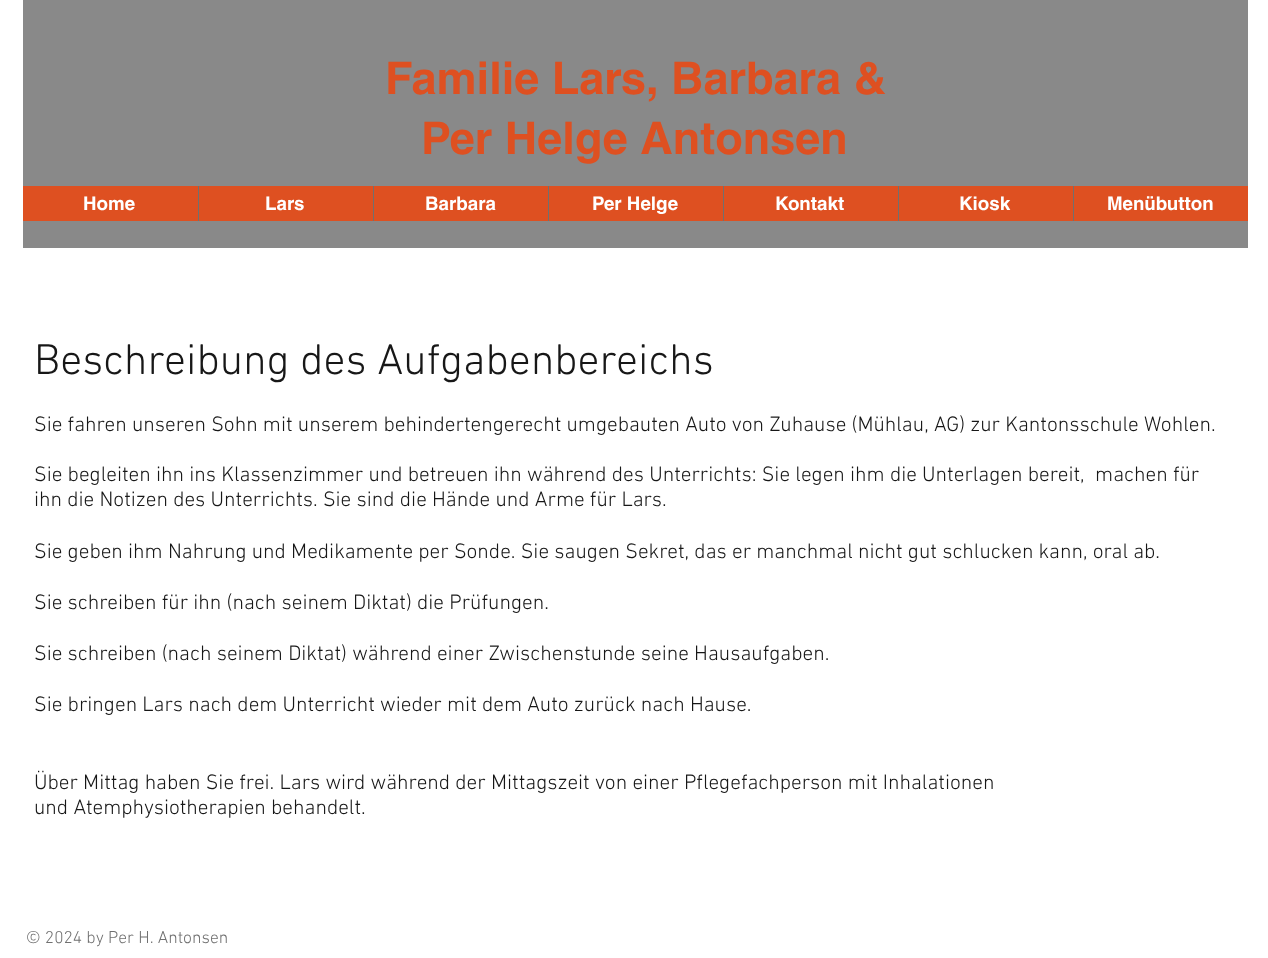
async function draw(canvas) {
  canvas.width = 1268
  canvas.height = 958
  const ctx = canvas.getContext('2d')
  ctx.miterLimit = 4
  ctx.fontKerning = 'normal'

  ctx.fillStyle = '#fff'
  ctx.fillRect(0, 0, 1268, 958)
  ctx.fillStyle = '#898989'
  ctx.fillRect(23, 0, 1225, 248)
  ctx.font = 'bold 45px helvetica'
  ctx.fillStyle = '#de5021'
  ctx.fillText('Familie Lars, Barbara &', 385, 94)
  ctx.fillText('Per Helge Antonsen', 421, 154)
  ctx.fillRect(23, 186, 1225, 35)
  ctx.font = 'bold 18.75px helvetica'
  ctx.fillStyle = '#fff'
  ctx.fillText('Home', 83, 210)
  ctx.fillStyle = '#707070'
  ctx.fillRect(198, 186, 1, 35)
  ctx.fillStyle = '#fff'
  ctx.fillText('Lars', 265, 210)
  ctx.fillStyle = '#707070'
  ctx.fillRect(373, 186, 1, 35)
  ctx.fillStyle = '#fff'
  ctx.fillText('Barbara', 425, 210)
  ctx.fillStyle = '#707070'
  ctx.fillRect(548, 186, 1, 35)
  ctx.fillStyle = '#fff'
  ctx.fillText('Per Helge', 592, 210)
  ctx.fillStyle = '#707070'
  ctx.fillRect(723, 186, 1, 35)
  ctx.fillStyle = '#fff'
  ctx.fillText('Kontakt', 775, 210)
  ctx.fillStyle = '#707070'
  ctx.fillRect(898, 186, 1, 35)
  ctx.fillStyle = '#fff'
  ctx.fillText('Kiosk', 959, 210)
  ctx.fillStyle = '#707070'
  ctx.fillRect(1073, 186, 1, 35)
  ctx.fillStyle = '#fff'
  ctx.fillText('Menübutton', 1107, 210)
  ctx.font = '300 43.75px "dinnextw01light"'
  ctx.fillStyle = '#171717'
  ctx.fillText('Beschreibung des Aufgabenbereichs', 34, 374)
  ctx.font = '300 21.25px "dinnextw01light"'
  ctx.fillText('Sie fahren unseren Sohn mit unserem behindertengerecht umgebauten Auto von Zuhause (Mühlau, AG) zur Kantonsschule Wohlen.', 34, 431)
  ctx.fillText('Sie begleiten ihn ins Klassenzimmer und betreuen ihn während des Unterrichts: Sie legen ihm die Unterlagen bereit,  machen für', 34, 481)
  ctx.fillText('ihn die Notizen des Unterrichts. Sie sind die Hände und Arme für Lars.', 34, 506)
  ctx.fillText('Sie geben ihm Nahrung und Medikamente per Sonde. Sie saugen Sekret, das er manchmal nicht gut schlucken kann, oral ab.', 34, 558)
  ctx.fillText('Sie schreiben für ihn (nach seinem Diktat) die Prüfungen.', 34, 609)
  ctx.fillText('Sie schreiben (nach seinem Diktat) während einer Zwischenstunde seine Hausaufgaben.', 34, 660)
  ctx.fillText('Sie bringen Lars nach dem Unterricht wieder mit dem Auto zurück nach Hause.', 34, 711)
  ctx.fillText('Über Mittag haben Sie frei. Lars wird während der Mittagszeit von einer Pflegefachperson mit Inhalationen', 34, 789)
  ctx.fillText('und Atemphysiotherapien behandelt.', 34, 814)
  ctx.font = '300 17.5px "dinnextw01light"'
  ctx.fillStyle = '#707070'
  ctx.fillText('© 2024 by Per H. Antonsen', 26, 943)
}

draw(document.querySelector('canvas'))
